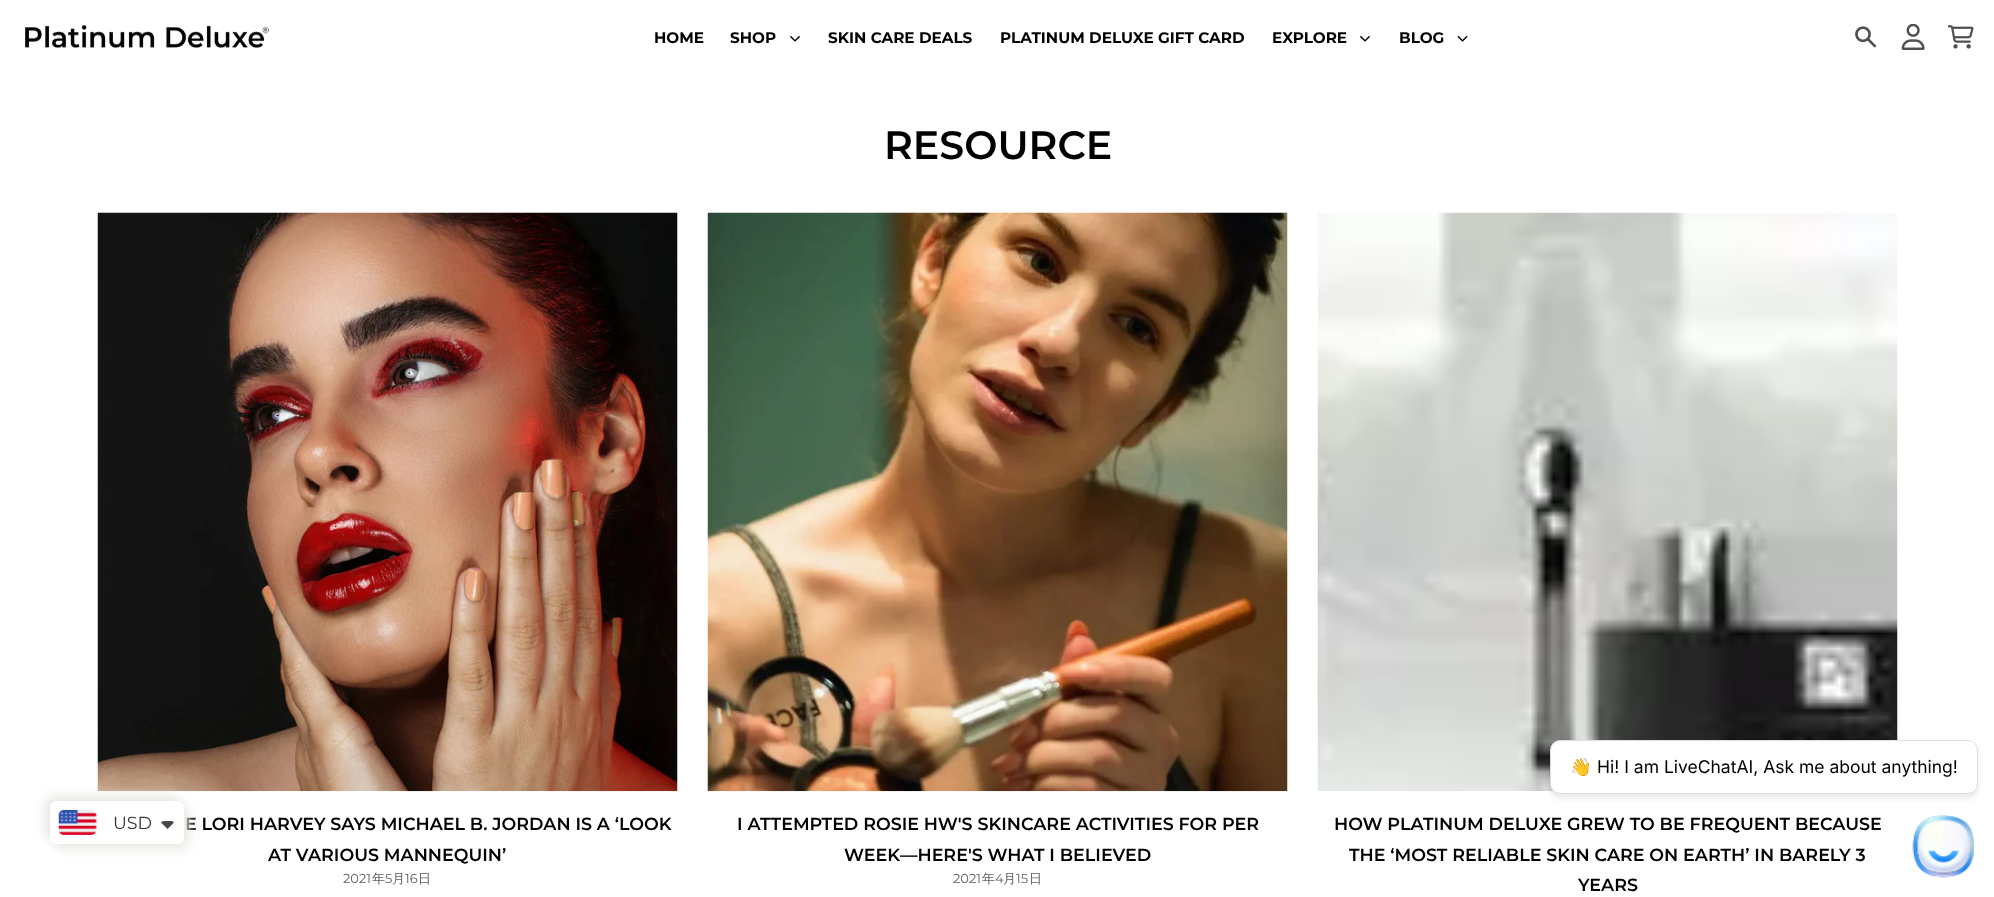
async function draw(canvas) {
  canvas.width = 1994
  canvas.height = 897
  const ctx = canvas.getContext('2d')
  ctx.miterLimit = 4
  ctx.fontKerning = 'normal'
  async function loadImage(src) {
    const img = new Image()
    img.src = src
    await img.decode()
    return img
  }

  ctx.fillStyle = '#fff'
  ctx.fillRect(0, 0, 1994, 897)
  ctx.drawImage(await loadImage('image0.png'), 25, 25, 244, 23)
  ctx.font = 'bold 15.25px Montserrat'
  ctx.fillStyle = '#000'
  ctx.fillText('HOME', 654, 43)
  ctx.fillText('SHOP', 730, 43)
  ctx.drawImage(await loadImage('image1.png'), 790, 36, 10, 6)
  ctx.fillText('SKIN CARE DEALS', 828, 43)
  ctx.fillText('PLATINUM DELUXE GIFT CARD', 1000, 43)
  ctx.fillText('EXPLORE', 1272, 43)
  ctx.drawImage(await loadImage('image1.png'), 1360, 36, 10, 6)
  ctx.fillText('BLOG', 1399, 43)
  ctx.drawImage(await loadImage('image2.png'), 1457, 36, 11, 6)
  ctx.drawImage(await loadImage('image3.png'), 1855, 26, 22, 22)
  ctx.drawImage(await loadImage('image4.png'), 1901, 24, 24, 26)
  ctx.drawImage(await loadImage('image5.png'), 1948, 25, 26, 24)
  ctx.font = '600 39.5px Montserrat'
  ctx.fillText('RESOURCE', 884, 159)
  ctx.drawImage(await loadImage('image6.png'), 97, 212, 581, 580)
  ctx.font = '600 17.5px Montserrat'
  ctx.fillText('E LORI HARVEY SAYS MICHAEL B. JORDAN IS A ‘LOOK', 185, 830)
  ctx.fillText('AT VARIOUS MANNEQUIN’', 268, 861)
  ctx.font = '13px Montserrat'
  ctx.fillStyle = '#616161'
  ctx.fillText('2021', 343, 883)
  ctx.font = '500 13px WenQuanYi Zen Hei'
  ctx.fillText('年', 372, 883)
  ctx.font = '13px Montserrat'
  ctx.fillText('5', 385, 883)
  ctx.font = '500 13px WenQuanYi Zen Hei'
  ctx.fillText('月', 392, 883)
  ctx.font = '13px Montserrat'
  ctx.fillText('16', 405, 883)
  ctx.font = '500 13px WenQuanYi Zen Hei'
  ctx.fillText('日', 418, 883)
  ctx.drawImage(await loadImage('image7.png'), 707, 212, 581, 580)
  ctx.font = '600 17.5px Montserrat'
  ctx.fillStyle = '#000'
  ctx.fillText('I ATTEMPTED ROSIE HW\'S SKINCARE ACTIVITIES FOR PER', 737, 830)
  ctx.fillText('WEEK—HERE\'S WHAT I BELIEVED', 844, 861)
  ctx.font = '13px Montserrat'
  ctx.fillStyle = '#616161'
  ctx.fillText('2021', 953, 883)
  ctx.font = '500 13px WenQuanYi Zen Hei'
  ctx.fillText('年', 982, 883)
  ctx.font = '13px Montserrat'
  ctx.fillText('4', 995, 883)
  ctx.font = '500 13px WenQuanYi Zen Hei'
  ctx.fillText('月', 1003, 883)
  ctx.font = '13px Montserrat'
  ctx.fillText('15', 1016, 883)
  ctx.font = '500 13px WenQuanYi Zen Hei'
  ctx.fillText('日', 1029, 883)
  ctx.drawImage(await loadImage('image8.png'), 1317, 212, 581, 579)
  ctx.font = '600 17.5px Montserrat'
  ctx.fillStyle = '#000'
  ctx.fillText('HOW PLATINUM DELUXE GREW TO BE FREQUENT BECAUSE', 1334, 830)
  ctx.fillText('THE ‘MOST RELIABLE SKIN CARE ON EARTH’ IN BARELY 3', 1349, 861)
  ctx.fillText('YEARS', 1578, 891)
  ctx.fillStyle = '#00000014'
  ctx.filter = 'blur(2.5px)'
  ctx.beginPath()
  ctx.roundRect(1550, 745, 428, 54, 10)
  ctx.fill()
  ctx.filter = 'none'
  ctx.fillStyle = '#fff'
  ctx.beginPath()
  ctx.roundRect(1550.5, 740.5, 427, 53, 9.5)
  ctx.fill()
  ctx.strokeStyle = '#ddd'
  ctx.stroke()
  ctx.font = '17.5px Noto Color Emoji'
  ctx.fillStyle = '#000'
  ctx.fillText('👋', 1570, 773)
  ctx.font = '17.5px Inter'
  ctx.fillText('Hi! I am LiveChatAI, Ask me about anything!', 1597, 773)
  ctx.drawImage(await loadImage('image9.png'), 1912, 815, 63, 63)
  ctx.fillStyle = '#e8e8e2'
  ctx.filter = 'blur(5.5px)'
  ctx.beginPath()
  ctx.roundRect(45, 796, 134, 43, 6)
  ctx.fill()
  ctx.filter = 'none'
  ctx.filter = 'blur(5.5px)'
  ctx.beginPath()
  ctx.roundRect(55, 806, 134, 43, 6)
  ctx.fill()
  ctx.filter = 'none'
  ctx.fillStyle = '#fff'
  ctx.beginPath()
  ctx.roundRect(50, 801, 134, 43, 6)
  ctx.fill()
  ctx.drawImage(await loadImage('image10.png'), 58, 810, 39, 25)
  ctx.font = '17.5px Montserrat'
  ctx.fillStyle = '#333'
  ctx.fillText('USD', 113, 829)
  ctx.fillStyle = '#474942'
  ctx.beginPath()
  ctx.moveTo(161, 822.5)
  ctx.bezierCurveTo(162.5, 820.5, 165.5, 821, 167.5, 821)
  ctx.bezierCurveTo(169.5, 821, 172.5, 820.5, 174, 822.5)
  ctx.lineTo(167.5, 829)
  ctx.closePath()
  ctx.fill()
}

draw(document.querySelector('canvas'))
